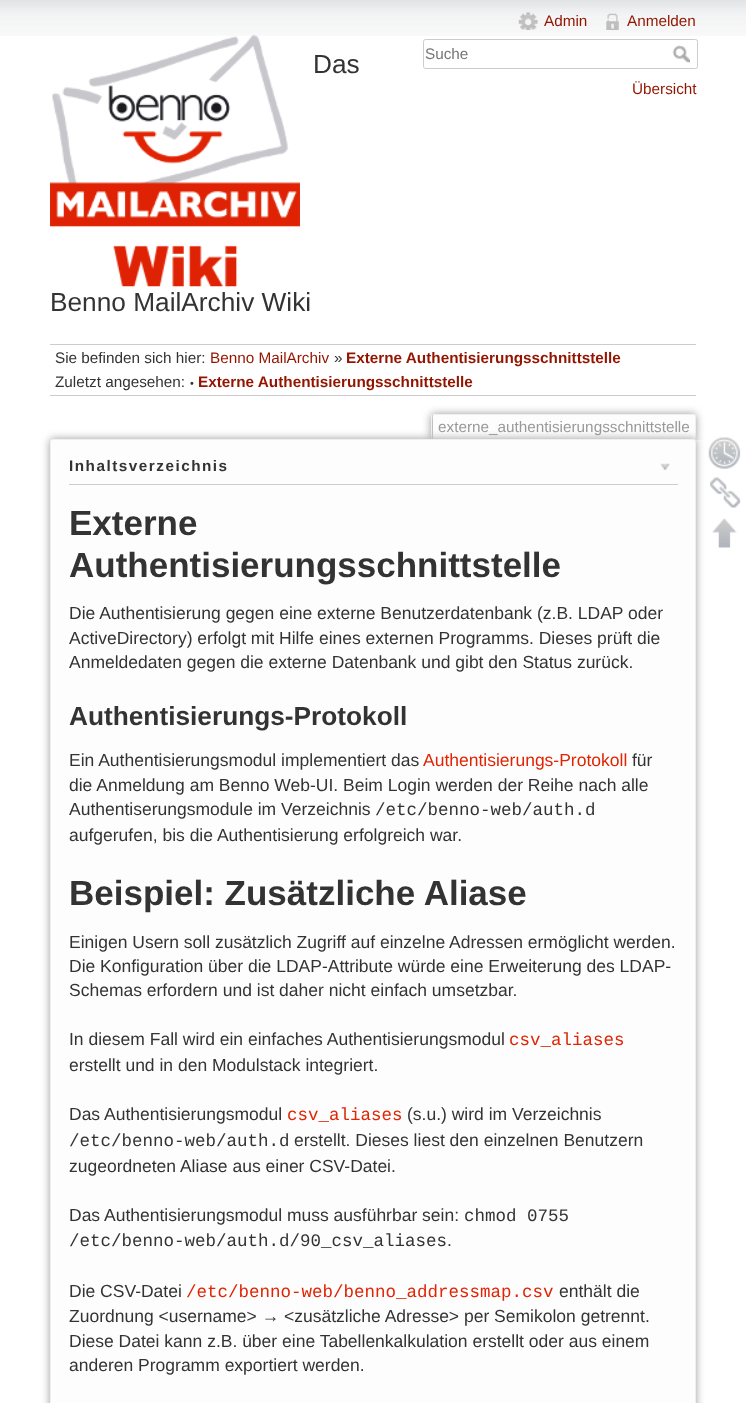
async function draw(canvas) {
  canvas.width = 746
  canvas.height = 1403
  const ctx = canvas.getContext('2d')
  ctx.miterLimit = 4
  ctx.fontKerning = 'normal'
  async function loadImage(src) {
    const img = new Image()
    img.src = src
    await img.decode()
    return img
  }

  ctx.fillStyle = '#fff'
  ctx.fillRect(0, 0, 746, 1403)
  ctx.drawImage(await loadImage('image0.png'), 0, 0, 746, 36)
  ctx.drawImage(await loadImage('image1.png'), 50, 35, 250, 252)
  ctx.font = '26.25px Liberation Sans'
  ctx.fillStyle = '#333'
  ctx.fillText('Das', 313, 73)
  ctx.fillText('Benno MailArchiv Wiki', 50, 311)
  ctx.drawImage(await loadImage('image2.png'), 518, 12, 20, 18)
  ctx.font = '15.3px Liberation Sans'
  ctx.fillStyle = '#931500'
  ctx.fillText('Admin', 544, 26)
  ctx.drawImage(await loadImage('image3.png'), 606, 13, 13, 17)
  ctx.fillText('Anmelden', 627, 26)
  ctx.beginPath()
  ctx.roundRect(423.5, 39.5, 274, 29, 2)
  ctx.strokeStyle = '#ccc'
  ctx.stroke()
  ctx.fillStyle = '#757575'
  ctx.fillText('Suche', 425, 59)
  ctx.drawImage(await loadImage('image4.png'), 672, 45, 18, 18)
  ctx.fillStyle = '#931500'
  ctx.fillText('Übersicht', 632, 94)
  ctx.fillStyle = '#ccc'
  ctx.fillRect(50, 344, 646, 1)
  ctx.fillStyle = '#333'
  ctx.fillText('Sie befinden sich hier:', 55, 363)
  ctx.fillStyle = '#931500'
  ctx.fillText('Benno MailArchiv', 210, 363)
  ctx.fillStyle = '#333'
  ctx.fillText('»', 334, 363)
  ctx.font = 'bold 15.3px Liberation Sans'
  ctx.fillStyle = '#931500'
  ctx.fillText('Externe Authentisierungsschnittstelle', 346, 363)
  ctx.fillStyle = '#ccc'
  ctx.fillRect(50, 395, 646, 1)
  ctx.font = '15.3px Liberation Sans'
  ctx.fillStyle = '#333'
  ctx.fillText('Zuletzt angesehen:', 55, 387)
  ctx.font = '11px Liberation Sans'
  ctx.fillText('•', 190, 387)
  ctx.font = 'bold 15.3px Liberation Sans'
  ctx.fillStyle = '#931500'
  ctx.fillText('Externe Authentisierungsschnittstelle', 198, 387)
  ctx.save()
  ctx.beginPath()
  ctx.rect(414, 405, 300, 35)
  ctx.clip()
  ctx.fillStyle = '#999'
  ctx.filter = 'blur(4px)'
  ctx.beginPath()
  ctx.roundRect(431, 414, 265, 26, 2.5)
  ctx.fill()
  ctx.filter = 'none'
  ctx.restore()
  ctx.fillStyle = '#fdfdfd'
  ctx.beginPath()
  ctx.roundRect(433, 415, 262, 25, [1, 1, 0, 0])
  ctx.fill()
  ctx.fillStyle = '#f0f0f0'
  ctx.fillRect(433, 414, 262, 1)
  ctx.fillRect(695, 415, 1, 25)
  ctx.fillRect(431, 415, 1, 25)
  ctx.font = '15.3px Liberation Sans'
  ctx.fillStyle = '#999'
  ctx.fillText('externe_authentisierungsschnittstelle', 438, 432)
  ctx.filter = 'blur(4.5px)'
  ctx.beginPath()
  ctx.roundRect(50, 439, 646, 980, 2.5)
  ctx.fill()
  ctx.filter = 'none'
  ctx.fillStyle = '#fdfdfd'
  ctx.beginPath()
  ctx.roundRect(50.5, 439.5, 645, 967, 2)
  ctx.fill()
  ctx.strokeStyle = '#f0f0f0'
  ctx.stroke()
  ctx.fillStyle = '#ccc'
  ctx.fillRect(69, 484, 609, 1)
  ctx.letterSpacing = '1.5px'
  ctx.font = 'bold 15.3px Liberation Sans'
  ctx.fillStyle = '#333'
  ctx.fillText('Inhaltsverzeichnis', 69, 471)
  ctx.drawImage(await loadImage('image5.png'), 660, 463, 10, 7)
  ctx.letterSpacing = '0px'
  ctx.font = 'bold 35px Liberation Sans'
  ctx.fillText('Externe', 69, 535)
  ctx.fillText('Authentisierungsschnittstelle', 69, 577)
  ctx.font = '17.5px Liberation Sans'
  ctx.fillText('Die Authentisierung gegen eine externe Benutzerdatenbank (z.B. LDAP oder', 69, 619)
  ctx.fillText('ActiveDirectory) erfolgt mit Hilfe eines externen Programms. Dieses prüft die', 69, 644)
  ctx.fillText('Anmeldedaten gegen die externe Datenbank und gibt den Status zurück.', 69, 668)
  ctx.font = 'bold 26.25px Liberation Sans'
  ctx.fillText('Authentisierungs-Protokoll', 69, 725)
  ctx.font = '17.5px Liberation Sans'
  ctx.fillText('Ein Authentisierungsmodul implementiert das', 69, 766)
  ctx.fillStyle = '#e02404'
  ctx.fillText('Authentisierungs-Protokoll', 423, 766)
  ctx.fillStyle = '#333'
  ctx.fillText('für', 632, 766)
  ctx.fillText('die Anmeldung am Benno Web-UI. Beim Login werden der Reihe nach alle', 69, 791)
  ctx.fillText('Authentiserungsmodule im Verzeichnis', 69, 815)
  ctx.font = '17.5px Liberation Mono'
  ctx.fillText('/etc/benno-web/auth.d', 375, 815)
  ctx.font = '17.5px Liberation Sans'
  ctx.fillText('aufgerufen, bis die Authentisierung erfolgreich war.', 69, 841)
  ctx.font = 'bold 35px Liberation Sans'
  ctx.fillText('Beispiel: Zusätzliche Aliase', 69, 905)
  ctx.font = '17.5px Liberation Sans'
  ctx.fillText('Einigen Usern soll zusätzlich Zugriff auf einzelne Adressen ermöglicht werden.', 69, 948)
  ctx.fillText('Die Konfiguration über die LDAP-Attribute würde eine Erweiterung des LDAP-', 69, 972)
  ctx.fillText('Schemas erfordern und ist daher nicht einfach umsetzbar.', 69, 996)
  ctx.fillText('In diesem Fall wird ein einfaches Authentisierungsmodul', 69, 1045)
  ctx.font = '17.5px Liberation Mono'
  ctx.fillStyle = '#e02404'
  ctx.fillText('csv_aliases', 509, 1045)
  ctx.font = '17.5px Liberation Sans'
  ctx.fillStyle = '#333'
  ctx.fillText('erstellt und in den Modulstack integriert.', 69, 1071)
  ctx.fillText('Das Authentisierungsmodul', 69, 1120)
  ctx.font = '17.5px Liberation Mono'
  ctx.fillStyle = '#e02404'
  ctx.fillText('csv_aliases', 287, 1120)
  ctx.font = '17.5px Liberation Sans'
  ctx.fillStyle = '#333'
  ctx.fillText('(s.u.) wird im Verzeichnis', 407, 1120)
  ctx.font = '17.5px Liberation Mono'
  ctx.fillText('/etc/benno-web/auth.d', 69, 1146)
  ctx.font = '17.5px Liberation Sans'
  ctx.fillText('erstellt. Dieses liest den einzelnen Benutzern', 294, 1146)
  ctx.fillText('zugeordneten Aliase aus einer CSV-Datei.', 69, 1172)
  ctx.fillText('Das Authentisierungsmodul muss ausführbar sein:', 69, 1221)
  ctx.font = '17.5px Liberation Mono'
  ctx.fillText('chmod 0755', 464, 1221)
  ctx.fillText('/etc/benno-web/auth.d/90_csv_aliases', 69, 1246)
  ctx.font = '17.5px Liberation Sans'
  ctx.fillText('.', 447, 1246)
  ctx.fillText('Die CSV-Datei', 69, 1297)
  ctx.font = '17.5px Liberation Mono'
  ctx.fillStyle = '#e02404'
  ctx.fillText('/etc/benno-web/benno_addressmap.csv', 186, 1297)
  ctx.font = '17.5px Liberation Sans'
  ctx.fillStyle = '#333'
  ctx.fillText('enthält die', 559, 1297)
  ctx.fillText('Zuordnung <username> → <zusätzliche Adresse> per Semikolon getrennt.', 69, 1322)
  ctx.fillText('Diese Datei kann z.B. über eine Tabellenkalkulation erstellt oder aus einem', 69, 1347)
  ctx.fillText('anderen Programm exportiert werden.', 69, 1371)
  ctx.drawImage(await loadImage('image6.png'), 708, 437, 33, 32)
  ctx.drawImage(await loadImage('image7.png'), 709, 477, 32, 31)
  ctx.drawImage(await loadImage('image8.png'), 712, 518, 25, 30)
}

draw(document.querySelector('canvas'))
